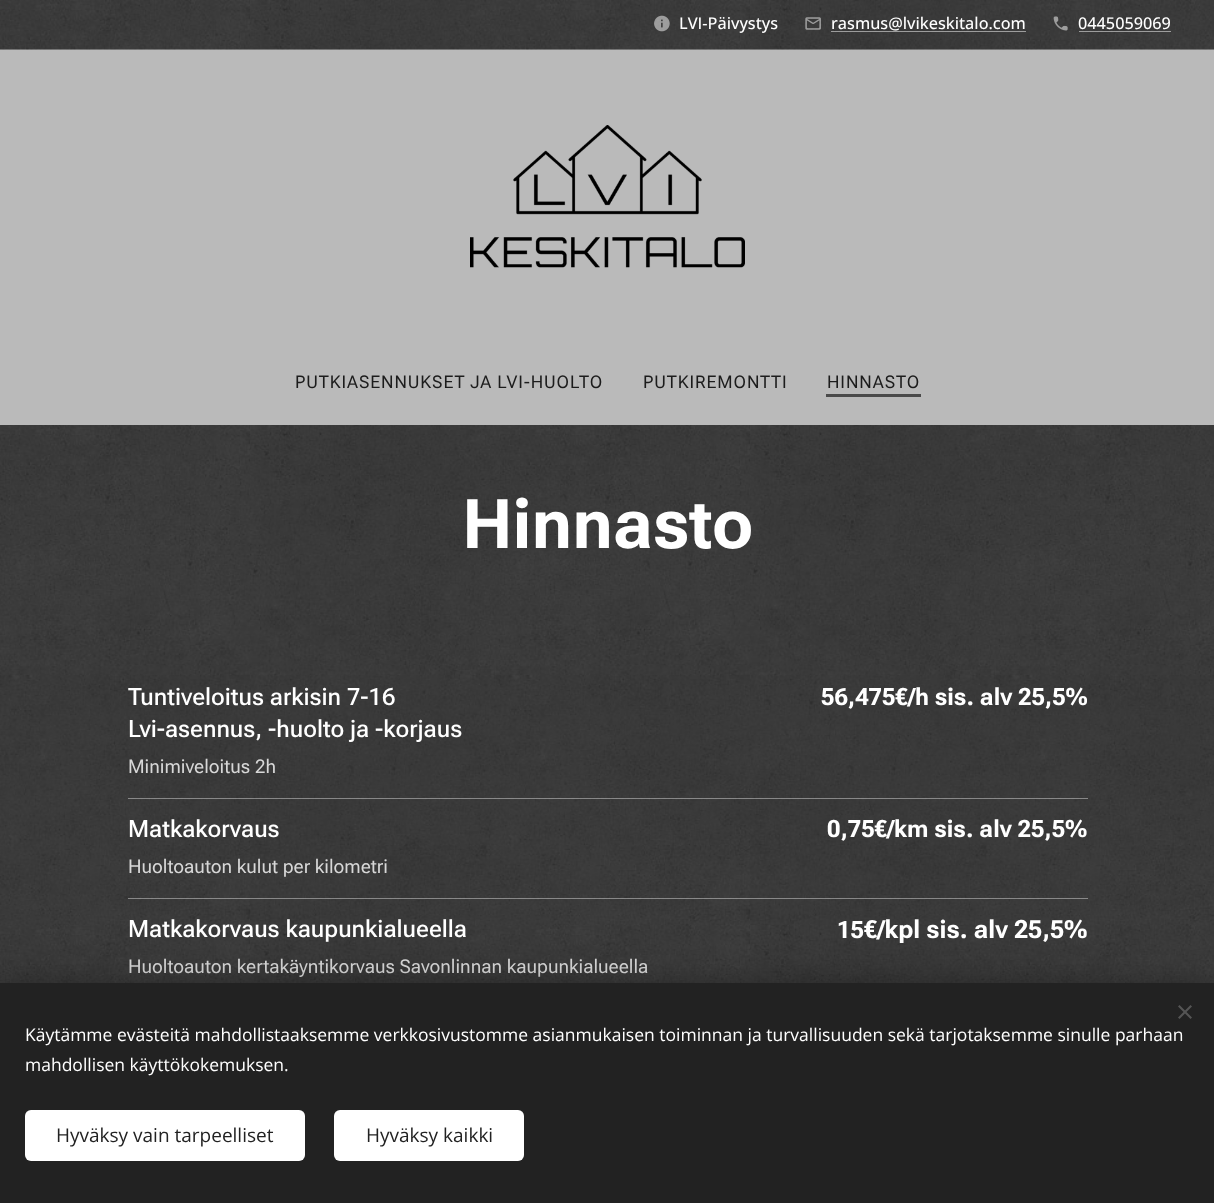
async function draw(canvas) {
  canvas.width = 1214
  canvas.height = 1203
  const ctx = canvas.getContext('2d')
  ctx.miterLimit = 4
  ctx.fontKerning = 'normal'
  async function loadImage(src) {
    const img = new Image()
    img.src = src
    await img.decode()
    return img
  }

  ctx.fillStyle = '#fff'
  ctx.fillRect(0, 0, 1214, 1203)
  ctx.drawImage(await loadImage('image0.png'), 0, 0, 1214, 50)
  ctx.drawImage(await loadImage('image1.png'), 654, 15, 16, 17)
  ctx.font = '500 16.25px Open Sans'
  ctx.fillText('LVI-Päivystys', 679, 29)
  ctx.drawImage(await loadImage('image2.png'), 805, 17, 16, 13)
  ctx.fillText('rasmus@lvikeskitalo.com', 831, 29)
  ctx.fillStyle = '#ffffff80'
  ctx.fillRect(831, 31, 195, 1)
  ctx.drawImage(await loadImage('image3.png'), 1053, 16, 15, 15)
  ctx.fillStyle = '#fff'
  ctx.fillText('0445059069', 1078, 29)
  ctx.fillStyle = '#ffffff80'
  ctx.fillRect(1079, 31, 92, 1)
  ctx.fillStyle = '#ffffff4d'
  ctx.fillRect(0, 49, 1214, 1)
  ctx.fillStyle = '#bababa'
  ctx.fillRect(0, 50, 1214, 375)
  ctx.drawImage(await loadImage('image4.png'), 470, 125, 275, 143)
  ctx.letterSpacing = '0.9px'
  ctx.font = '17.5px Roboto Flex'
  ctx.fillStyle = '#1c1c1c'
  ctx.fillText('PUTKIASENNUKSET JA LVI-HUOLTO', 295, 388)
  ctx.fillText('PUTKIREMONTTI', 643, 388)
  ctx.fillText('HINNASTO', 827, 388)
  ctx.fillStyle = '#4a4a4a'
  ctx.fillRect(826, 394, 95, 3)
  ctx.drawImage(await loadImage('image5.png'), 0, 425, 1214, 558)
  ctx.letterSpacing = '0px'
  ctx.font = 'bold 68.75px Roboto Flex'
  ctx.fillStyle = '#fff'
  ctx.fillText('Hinnasto', 462, 548)
  ctx.fillStyle = '#ffffff66'
  ctx.fillRect(128, 798, 960, 1)
  ctx.font = '500 23.75px Roboto Flex'
  ctx.fillStyle = '#fff'
  ctx.fillText('Tuntiveloitus arkisin 7-16', 128, 705)
  ctx.fillText('Lvi-asennus, -huolto ja -korjaus', 128, 737)
  ctx.font = '19px Roboto Flex'
  ctx.fillStyle = '#d7d7d7'
  ctx.fillText('Minimiveloitus 2h', 128, 773)
  ctx.font = 'bold 23.75px Roboto Flex'
  ctx.fillStyle = '#fff'
  ctx.fillText('56,475€/h sis. alv 25,5%', 821, 705)
  ctx.fillStyle = '#ffffff66'
  ctx.fillRect(128, 898, 960, 1)
  ctx.font = '500 23.75px Roboto Flex'
  ctx.fillStyle = '#fff'
  ctx.fillText('Matkakorvaus', 128, 837)
  ctx.font = '19px Roboto Flex'
  ctx.fillStyle = '#d7d7d7'
  ctx.fillText('Huoltoauton kulut per kilometri', 128, 873)
  ctx.font = 'bold 23.75px Roboto Flex'
  ctx.fillStyle = '#fff'
  ctx.fillText('0,75€/km sis. alv 25,5%', 827, 837)
  ctx.font = '500 23.75px Roboto Flex'
  ctx.fillText('Matkakorvaus kaupunkialueella', 128, 937)
  ctx.font = '19px Roboto Flex'
  ctx.fillStyle = '#d7d7d7'
  ctx.fillText('Huoltoauton kertakäyntikorvaus Savonlinnan kaupunkialueella', 128, 973)
  ctx.font = 'bold 23.75px Roboto Flex'
  ctx.fillStyle = '#fff'
  ctx.fillText('15', 837, 938)
  ctx.font = 'bold 25px Roboto Flex'
  ctx.fillText('€/kpl sis. alv 25,5%', 864, 938)
  ctx.fillStyle = '#00000054'
  ctx.filter = 'blur(15.5px)'
  ctx.beginPath()
  ctx.rect(0, 983, 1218, 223)
  ctx.fill()
  ctx.filter = 'none'
  ctx.fillStyle = '#222'
  ctx.fillRect(0, 983, 1214, 220)
  ctx.fillStyle = '#555'
  ctx.beginPath()
  ctx.moveTo(1178, 1017.5)
  ctx.lineTo(1190.5, 1005)
  ctx.lineTo(1192, 1006.5)
  ctx.lineTo(1179.5, 1019)
  ctx.closePath()
  ctx.fill()
  ctx.beginPath()
  ctx.moveTo(1179.5, 1005)
  ctx.lineTo(1192, 1017.5)
  ctx.lineTo(1190.5, 1019)
  ctx.lineTo(1178, 1006.5)
  ctx.closePath()
  ctx.fill()
  ctx.font = '17.5px Open Sans'
  ctx.fillStyle = '#fff'
  ctx.fillText('Käytämme evästeitä mahdollistaaksemme verkkosivustomme asianmukaisen toiminnan ja turvallisuuden sekä tarjotaksemme sinulle parhaan', 25, 1041)
  ctx.fillText('mahdollisen käyttökokemuksen.', 25, 1071)
  ctx.beginPath()
  ctx.roundRect(25, 1110, 280, 51, 6)
  ctx.fill()
  ctx.font = '19px Open Sans'
  ctx.fillStyle = '#222'
  ctx.fillText('Hyväksy vain tarpeelliset', 56, 1142)
  ctx.fillStyle = '#fff'
  ctx.beginPath()
  ctx.roundRect(334, 1110, 190, 51, 6)
  ctx.fill()
  ctx.fillStyle = '#222'
  ctx.fillText('Hyväksy kaikki', 366, 1142)
}

draw(document.querySelector('canvas'))
